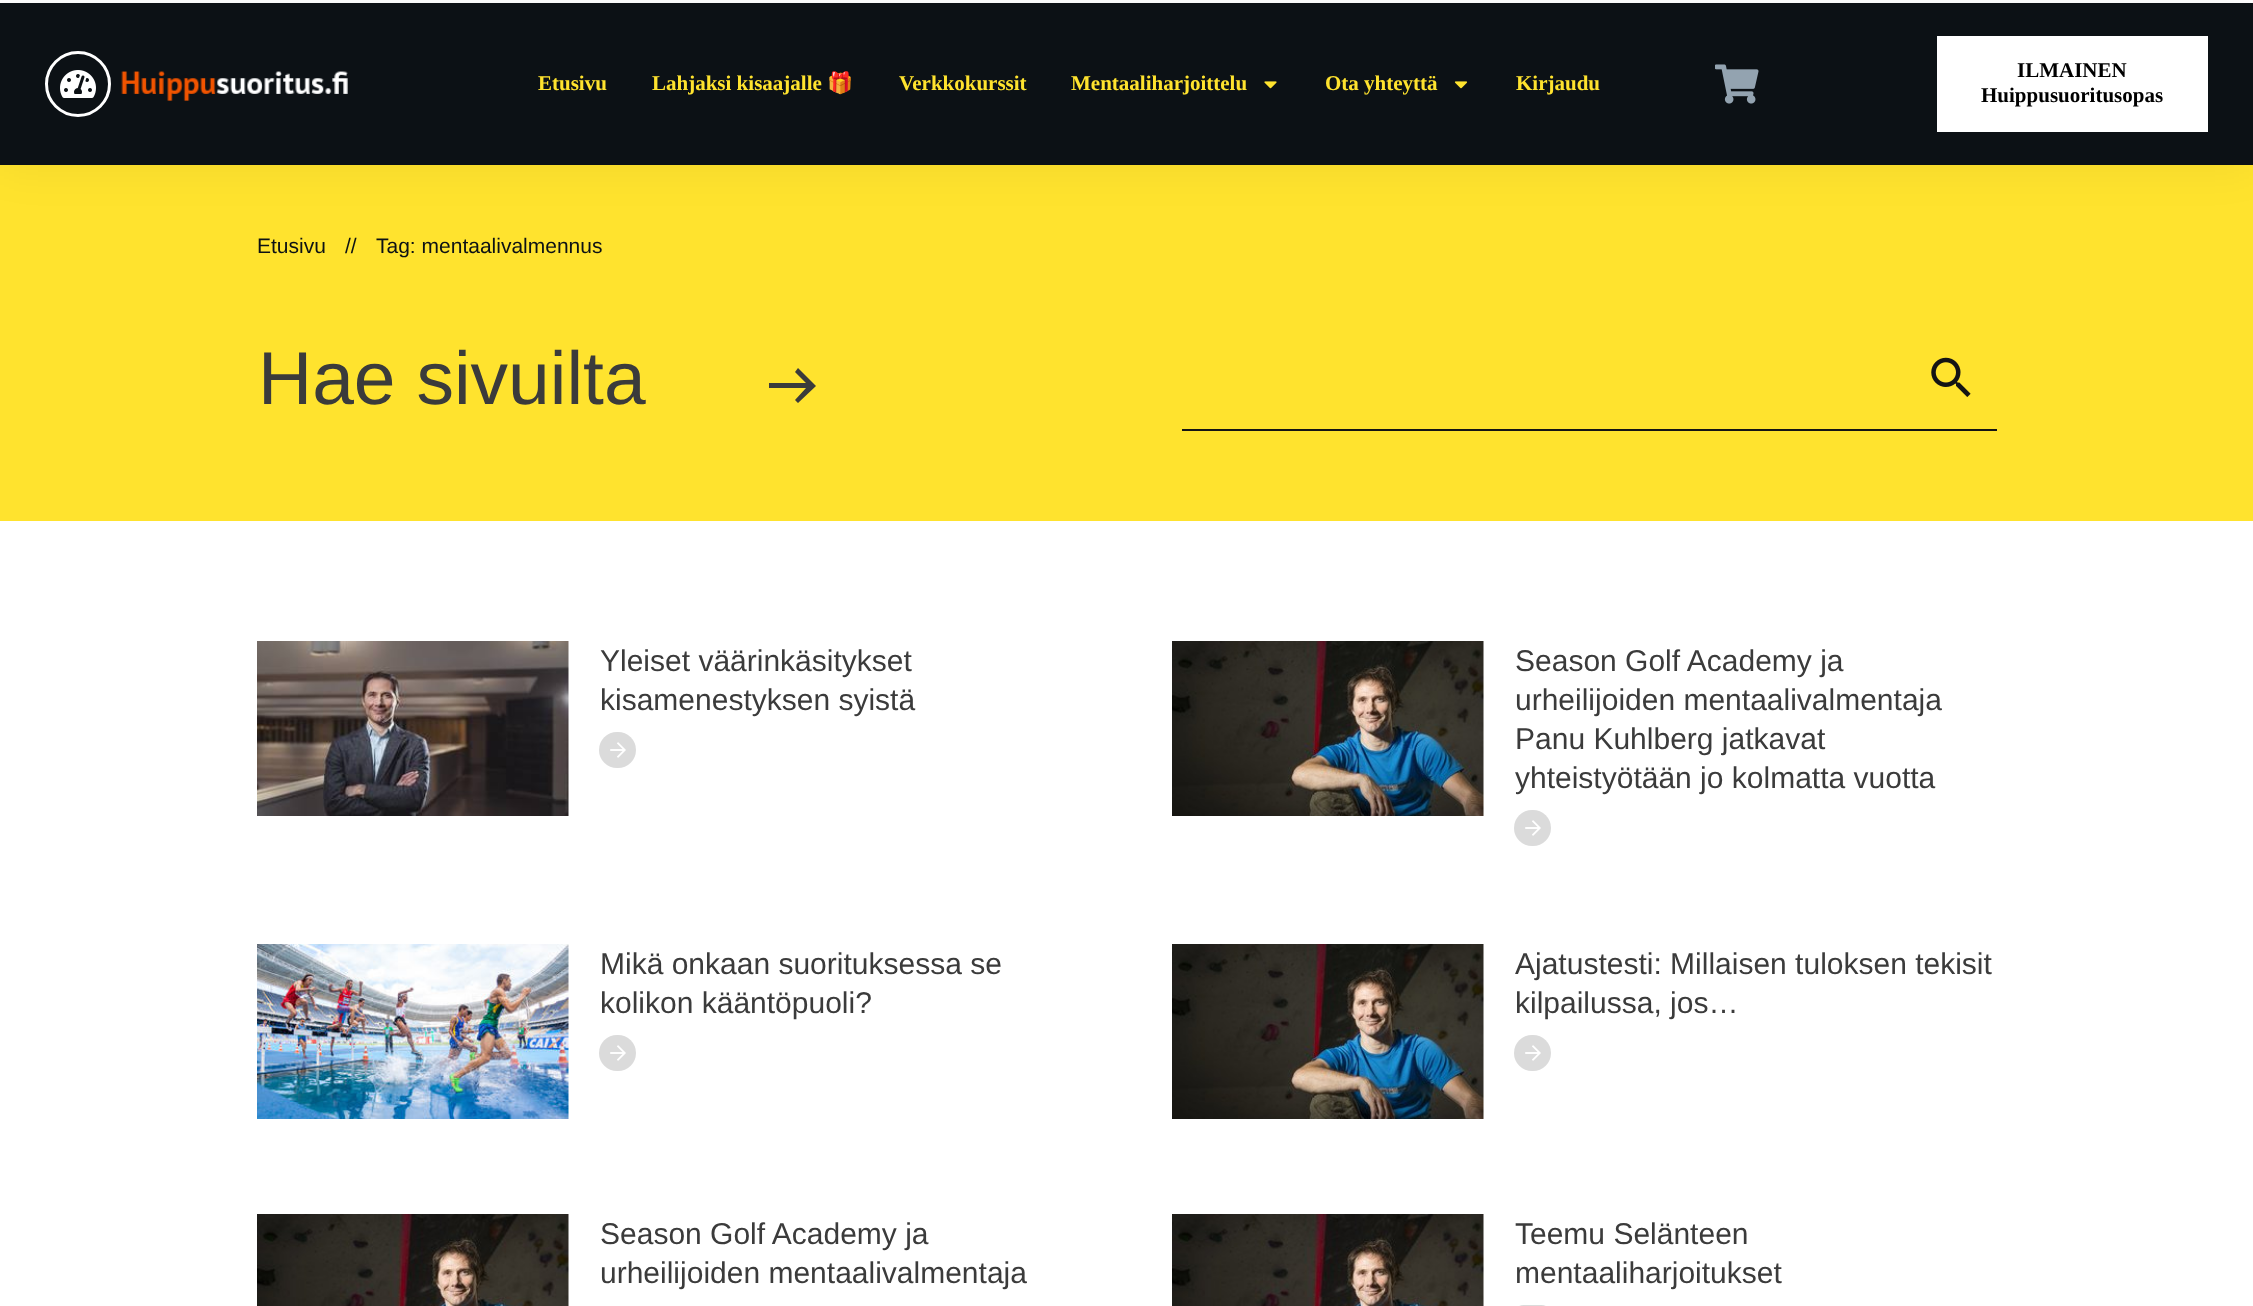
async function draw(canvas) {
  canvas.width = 2253
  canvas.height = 1306
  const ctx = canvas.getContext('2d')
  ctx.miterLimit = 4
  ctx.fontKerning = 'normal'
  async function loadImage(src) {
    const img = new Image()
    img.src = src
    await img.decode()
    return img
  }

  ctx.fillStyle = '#fff'
  ctx.fillRect(0, 0, 2253, 1306)
  ctx.fillStyle = '#ffe32e'
  ctx.fillRect(0, 165, 2253, 356)
  ctx.fillStyle = '#0000000d'
  ctx.filter = 'blur(22.5px)'
  ctx.beginPath()
  ctx.rect(0, 6, 2253, 162)
  ctx.fill()
  ctx.filter = 'none'
  ctx.fillStyle = '#0c1115'
  ctx.fillRect(0, 3, 2253, 162)
  ctx.beginPath()
  ctx.arc(78, 84, 31.5, 0, 2 * Math.PI)
  ctx.strokeStyle = '#fff'
  ctx.lineWidth = 3
  ctx.stroke()
  ctx.drawImage(await loadImage('image0.png'), 60, 70, 36, 28)
  ctx.drawImage(await loadImage('image1.png'), 121, 71, 227, 30)
  ctx.font = 'bold 21px Liberation Serif'
  ctx.fillStyle = '#ffe32e'
  ctx.fillText('Etusivu', 538, 90)
  ctx.fillText('Lahjaksi kisaajalle', 652, 90)
  ctx.font = 'bold 21px Noto Color Emoji'
  ctx.fillText('🎁', 827, 90)
  ctx.font = 'bold 21px Liberation Serif'
  ctx.fillText('Verkkokurssit', 899, 90)
  ctx.fillText('Mentaaliharjoittelu', 1071, 90)
  ctx.drawImage(await loadImage('image2.png'), 1264, 81, 13, 8)
  ctx.fillText('Ota yhteyttä', 1325, 90)
  ctx.drawImage(await loadImage('image3.png'), 1454, 81, 14, 8)
  ctx.fillText('Kirjaudu', 1516, 90)
  ctx.drawImage(await loadImage('image4.png'), 1715, 64, 44, 40)
  ctx.fillStyle = '#fff'
  ctx.fillRect(1937, 36, 271, 96)
  ctx.fillStyle = '#000'
  ctx.fillText('ILMAINEN', 2017, 77)
  ctx.fillText('Huippusuoritusopas', 1981, 102)
  ctx.font = '21px Liberation Sans'
  ctx.fillStyle = '#0c1115'
  ctx.fillText('Etusivu', 257, 253)
  ctx.fillText('//', 345, 253)
  ctx.fillText('Tag: mentaalivalmennus', 376, 253)
  ctx.font = '75px Liberation Sans'
  ctx.fillStyle = '#3b3b3b'
  ctx.fillText('Hae sivuilta', 258, 404)
  ctx.beginPath()
  ctx.moveTo(769, 388)
  ctx.lineTo(769, 383)
  ctx.lineTo(806, 383)
  ctx.lineTo(795, 372)
  ctx.lineTo(798, 368)
  ctx.lineTo(816, 386)
  ctx.lineTo(798, 403)
  ctx.lineTo(795, 400)
  ctx.lineTo(806, 388)
  ctx.closePath()
  ctx.fill()
  ctx.fillStyle = '#141414'
  ctx.fillRect(1182, 429, 815, 2)
  ctx.drawImage(await loadImage('image5.png'), 1931, 357, 40, 40)
  ctx.drawImage(await loadImage('image6.png'), 257, 641, 312, 175)
  ctx.font = '30px Liberation Sans'
  ctx.fillStyle = '#3b3b3b'
  ctx.fillText('Yleiset väärinkäsitykset', 600, 671)
  ctx.fillText('kisamenestyksen syistä', 600, 710)
  ctx.fillStyle = '#dbdbdb'
  ctx.beginPath()
  ctx.roundRect(599, 732, 37, 36, 18)
  ctx.fill()
  ctx.drawImage(await loadImage('image7.png'), 610, 742, 16, 16)
  ctx.drawImage(await loadImage('image8.png'), 1172, 641, 312, 175)
  ctx.fillStyle = '#3b3b3b'
  ctx.fillText('Season Golf Academy ja', 1515, 671)
  ctx.fillText('urheilijoiden mentaalivalmentaja', 1515, 710)
  ctx.fillText('Panu Kuhlberg jatkavat', 1515, 749)
  ctx.fillText('yhteistyötään jo kolmatta vuotta', 1515, 788)
  ctx.fillStyle = '#dbdbdb'
  ctx.beginPath()
  ctx.roundRect(1514, 810, 37, 36, 18)
  ctx.fill()
  ctx.drawImage(await loadImage('image7.png'), 1525, 820, 16, 16)
  ctx.drawImage(await loadImage('image9.png'), 257, 944, 312, 175)
  ctx.fillStyle = '#3b3b3b'
  ctx.fillText('Mikä onkaan suorituksessa se', 600, 974)
  ctx.fillText('kolikon kääntöpuoli?', 600, 1013)
  ctx.fillStyle = '#dbdbdb'
  ctx.beginPath()
  ctx.roundRect(599, 1035, 37, 36, 18)
  ctx.fill()
  ctx.drawImage(await loadImage('image7.png'), 610, 1045, 16, 16)
  ctx.drawImage(await loadImage('image8.png'), 1172, 944, 312, 175)
  ctx.fillStyle = '#3b3b3b'
  ctx.fillText('Ajatustesti: Millaisen tuloksen tekisit', 1515, 974)
  ctx.fillText('kilpailussa, jos…', 1515, 1013)
  ctx.fillStyle = '#dbdbdb'
  ctx.beginPath()
  ctx.roundRect(1514, 1035, 37, 36, 18)
  ctx.fill()
  ctx.drawImage(await loadImage('image7.png'), 1525, 1045, 16, 16)
  ctx.drawImage(await loadImage('image10.png'), 257, 1214, 312, 92)
  ctx.fillStyle = '#3b3b3b'
  ctx.fillText('Season Golf Academy ja', 600, 1244)
  ctx.fillText('urheilijoiden mentaalivalmentaja', 600, 1283)
  ctx.drawImage(await loadImage('image11.png'), 1172, 1214, 312, 92)
  ctx.fillText('Teemu Selänteen', 1515, 1244)
  ctx.fillText('mentaaliharjoitukset', 1515, 1283)
  ctx.fillStyle = '#dbdbdb'
  ctx.beginPath()
  ctx.roundRect(1514, 1305, 37, 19, 18)
  ctx.fill()
}

draw(document.querySelector('canvas'))
